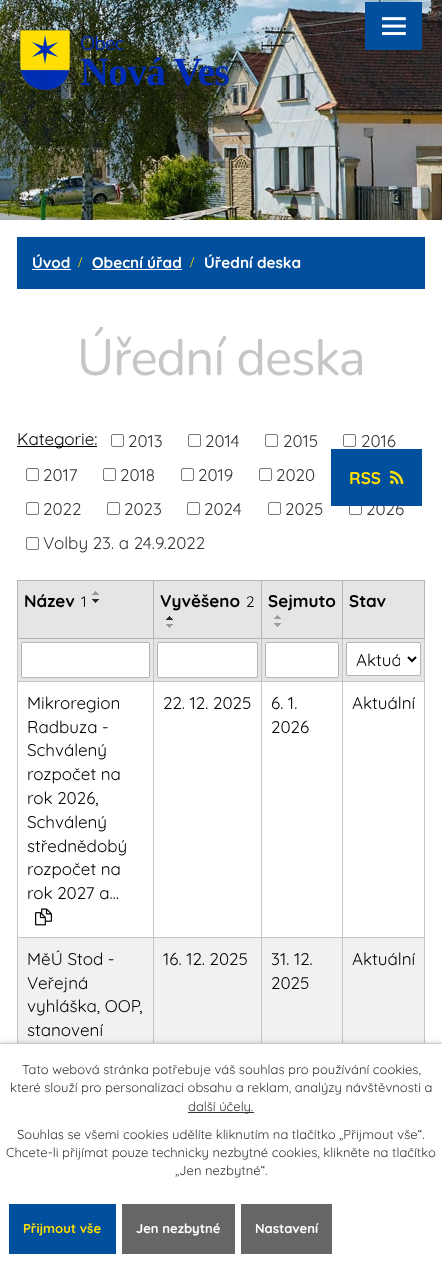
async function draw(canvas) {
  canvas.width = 442
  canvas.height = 1274
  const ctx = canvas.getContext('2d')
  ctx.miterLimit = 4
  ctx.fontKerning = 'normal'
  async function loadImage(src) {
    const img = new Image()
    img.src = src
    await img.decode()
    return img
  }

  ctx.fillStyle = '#fff'
  ctx.fillRect(0, 0, 442, 1274)
  ctx.drawImage(await loadImage('image0.png'), 0, 0, 442, 220)
  ctx.fillStyle = '#024f9d'
  ctx.fillRect(365, 2, 57, 48)
  ctx.drawImage(await loadImage('image1.png'), 382, 17, 24, 19)
  ctx.drawImage(await loadImage('image2.png'), 20, 30, 50, 60)
  ctx.letterSpacing = '-1px'
  ctx.font = '20px Nunito'
  ctx.fillStyle = '#002cb5'
  ctx.fillText('Obec', 80, 50)
  ctx.font = 'bold 40px Liberation Serif'
  ctx.fillText('Nová Ves', 80, 85)
  ctx.fillStyle = '#024f9d'
  ctx.fillRect(17, 237, 408, 52)
  ctx.letterSpacing = '0px'
  ctx.font = 'bold 15.25px Quicksand'
  ctx.fillStyle = '#fff'
  ctx.fillText('Úvod', 32, 268)
  ctx.fillRect(32, 269, 39, 1)
  ctx.font = '15.25px Liberation Serif'
  ctx.fillStyle = '#ffdf03'
  ctx.fillText('/', 78, 267)
  ctx.font = 'bold 15.25px Quicksand'
  ctx.fillStyle = '#fff'
  ctx.fillText('Obecní úřad', 92, 268)
  ctx.fillRect(92, 269, 90, 1)
  ctx.font = '15.25px Liberation Serif'
  ctx.fillStyle = '#ffdf03'
  ctx.fillText('/', 190, 267)
  ctx.font = 'bold 15.25px Quicksand'
  ctx.fillStyle = '#fff'
  ctx.fillText('Úřední deska', 204, 268)
  ctx.letterSpacing = '-1px'
  ctx.font = '51px Nunito'
  ctx.fillStyle = '#c6c6c6'
  ctx.fillText('Úřední deska', 77, 375)
  ctx.fillStyle = '#000'
  ctx.fillRect(17, 446, 80, 1)
  ctx.letterSpacing = '0px'
  ctx.font = '17px Quicksand'
  ctx.fillText('Kategorie:', 17, 445)
  ctx.beginPath()
  ctx.roundRect(111.5, 434.5, 12, 12, 1.5)
  ctx.strokeStyle = '#767676'
  ctx.stroke()
  ctx.fillStyle = '#333'
  ctx.fillText('2013', 128, 447)
  ctx.beginPath()
  ctx.roundRect(188.5, 434.5, 12, 12, 1.5)
  ctx.stroke()
  ctx.fillText('2014', 205, 447)
  ctx.beginPath()
  ctx.roundRect(265.5, 434.5, 12, 12, 1.5)
  ctx.stroke()
  ctx.fillText('2015', 283, 447)
  ctx.beginPath()
  ctx.roundRect(343.5, 434.5, 12, 12, 1.5)
  ctx.stroke()
  ctx.fillText('2016', 361, 447)
  ctx.beginPath()
  ctx.roundRect(26.5, 468.5, 12, 12, 1.5)
  ctx.stroke()
  ctx.fillText('2017', 43, 481)
  ctx.beginPath()
  ctx.roundRect(103.5, 468.5, 12, 12, 1.5)
  ctx.stroke()
  ctx.fillText('2018', 120, 481)
  ctx.beginPath()
  ctx.roundRect(181.5, 468.5, 12, 12, 1.5)
  ctx.stroke()
  ctx.fillText('2019', 198, 481)
  ctx.beginPath()
  ctx.roundRect(259.5, 468.5, 12, 12, 1.5)
  ctx.stroke()
  ctx.fillText('2020', 276, 481)
  ctx.beginPath()
  ctx.roundRect(26.5, 502.5, 12, 12, 1.5)
  ctx.stroke()
  ctx.fillText('2022', 43, 515)
  ctx.beginPath()
  ctx.roundRect(107.5, 502.5, 12, 12, 1.5)
  ctx.stroke()
  ctx.fillText('2023', 124, 515)
  ctx.beginPath()
  ctx.roundRect(187.5, 502.5, 12, 12, 1.5)
  ctx.stroke()
  ctx.fillText('2024', 204, 515)
  ctx.beginPath()
  ctx.roundRect(268.5, 502.5, 12, 12, 1.5)
  ctx.stroke()
  ctx.fillText('2025', 285, 515)
  ctx.beginPath()
  ctx.roundRect(349.5, 502.5, 12, 12, 1.5)
  ctx.stroke()
  ctx.fillText('2026', 366, 515)
  ctx.beginPath()
  ctx.roundRect(26.5, 537.5, 12, 12, 1.5)
  ctx.stroke()
  ctx.fillText('Volby 23. a 24.9.2022', 43, 549)
  ctx.fillStyle = '#024f9d'
  ctx.fillRect(331, 449, 91, 57)
  ctx.font = 'bold 17px Quicksand'
  ctx.fillStyle = '#ffdf03'
  ctx.fillText('RSS', 349, 484)
  ctx.drawImage(await loadImage('image3.png'), 390, 470, 14, 14)
  ctx.fillStyle = '#e5e5e5'
  ctx.fillRect(18, 581, 135, 57)
  ctx.fillStyle = '#b5b5b5'
  ctx.fillRect(342, 580, 83, 1)
  ctx.fillStyle = '#c5c5c5'
  ctx.fillRect(342, 681, 83, 1)
  ctx.fillRect(342, 937, 83, 1)
  ctx.fillRect(424, 937, 1, 106)
  ctx.fillRect(424, 638, 1, 300)
  ctx.fillStyle = '#b5b5b5'
  ctx.fillRect(424, 580, 1, 59)
  ctx.fillStyle = '#f1f1f1'
  ctx.fillRect(18, 938, 406, 105)
  ctx.fillStyle = '#c5c5c5'
  ctx.fillRect(342, 937, 1, 106)
  ctx.fillRect(261, 937, 82, 1)
  ctx.fillRect(342, 681, 1, 257)
  ctx.fillRect(261, 681, 82, 1)
  ctx.fillRect(342, 638, 1, 44)
  ctx.fillStyle = '#b5b5b5'
  ctx.fillRect(342, 638, 83, 1)
  ctx.fillRect(342, 580, 1, 59)
  ctx.fillRect(261, 580, 82, 1)
  ctx.fillStyle = '#c5c5c5'
  ctx.fillRect(261, 937, 1, 106)
  ctx.fillRect(153, 937, 109, 1)
  ctx.fillRect(261, 681, 1, 257)
  ctx.fillRect(153, 681, 109, 1)
  ctx.fillRect(261, 638, 1, 44)
  ctx.fillStyle = '#b5b5b5'
  ctx.fillRect(261, 638, 82, 1)
  ctx.fillRect(261, 580, 1, 59)
  ctx.fillRect(153, 580, 109, 1)
  ctx.fillStyle = '#c5c5c5'
  ctx.fillRect(153, 937, 1, 106)
  ctx.fillRect(17, 937, 137, 1)
  ctx.fillRect(153, 681, 1, 257)
  ctx.fillRect(17, 681, 137, 1)
  ctx.fillRect(153, 638, 1, 44)
  ctx.fillStyle = '#b5b5b5'
  ctx.fillRect(153, 638, 109, 1)
  ctx.fillRect(153, 580, 1, 59)
  ctx.fillRect(17, 580, 137, 1)
  ctx.fillStyle = '#c5c5c5'
  ctx.fillRect(17, 937, 1, 106)
  ctx.fillRect(17, 638, 1, 300)
  ctx.fillStyle = '#b5b5b5'
  ctx.fillRect(17, 638, 137, 1)
  ctx.fillRect(17, 580, 1, 59)
  ctx.fillStyle = '#000'
  ctx.fillText('Název', 24, 607)
  ctx.font = '15.25px Quicksand'
  ctx.fillText('1', 81, 607)
  ctx.drawImage(await loadImage('image4.png'), 92, 591, 7, 4)
  ctx.drawImage(await loadImage('image5.png'), 92, 599, 7, 4)
  ctx.fillStyle = '#e5e5e5'
  ctx.fillRect(154, 581, 107, 57)
  ctx.font = 'bold 17px Quicksand'
  ctx.fillStyle = '#000'
  ctx.fillText('Vyvěšeno', 160, 607)
  ctx.font = '15.25px Quicksand'
  ctx.fillText('2', 246, 607)
  ctx.drawImage(await loadImage('image6.png'), 166, 616, 7, 4)
  ctx.drawImage(await loadImage('image7.png'), 166, 624, 7, 4)
  ctx.fillStyle = '#e5e5e5'
  ctx.fillRect(262, 581, 80, 57)
  ctx.font = 'bold 17px Quicksand'
  ctx.fillStyle = '#000'
  ctx.fillText('Sejmuto', 268, 607)
  ctx.drawImage(await loadImage('image4.png'), 274, 615, 7, 4)
  ctx.drawImage(await loadImage('image7.png'), 274, 623, 7, 4)
  ctx.fillStyle = '#e5e5e5'
  ctx.fillRect(343, 581, 81, 57)
  ctx.fillStyle = '#000'
  ctx.fillText('Stav', 349, 607)
  ctx.fillStyle = '#e5e5e5'
  ctx.fillRect(18, 639, 135, 42)
  ctx.fillStyle = '#fff'
  ctx.beginPath()
  ctx.roundRect(21.5, 642.5, 128, 35, 1.5)
  ctx.fill()
  ctx.strokeStyle = '#b5b5b5'
  ctx.stroke()
  ctx.fillStyle = '#e5e5e5'
  ctx.fillRect(154, 639, 107, 42)
  ctx.fillStyle = '#fff'
  ctx.beginPath()
  ctx.roundRect(157.5, 642.5, 100, 35, 1.5)
  ctx.fill()
  ctx.stroke()
  ctx.fillStyle = '#e5e5e5'
  ctx.fillRect(262, 639, 80, 42)
  ctx.fillStyle = '#fff'
  ctx.beginPath()
  ctx.roundRect(265.5, 642.5, 73, 35, 1.5)
  ctx.fill()
  ctx.stroke()
  ctx.fillStyle = '#e5e5e5'
  ctx.fillRect(343, 639, 81, 42)
  ctx.fillStyle = '#fff'
  ctx.beginPath()
  ctx.roundRect(346.5, 642.5, 74, 33, 1.5)
  ctx.fill()
  ctx.stroke()
  ctx.beginPath()
  ctx.moveTo(408, 657)
  ctx.lineTo(412, 661)
  ctx.lineTo(416, 657)
  ctx.strokeStyle = '#000'
  ctx.lineWidth = 2
  ctx.stroke()
  ctx.save()
  ctx.beginPath()
  ctx.rect(356, 648, 44, 23)
  ctx.clip()
  ctx.font = '17px Quicksand'
  ctx.fillStyle = '#000'
  ctx.fillText('Aktuá', 356, 666)
  ctx.restore()
  ctx.font = '17px Quicksand'
  ctx.fillStyle = '#000'
  ctx.fillText('Mikroregion', 27, 709)
  ctx.fillText('Radbuza -', 27, 733)
  ctx.fillText('Schválený', 27, 756)
  ctx.fillText('rozpočet na', 27, 780)
  ctx.fillText('rok 2026,', 27, 804)
  ctx.fillText('Schválený', 27, 828)
  ctx.fillText('střednědobý', 27, 852)
  ctx.fillText('rozpočet na', 27, 875)
  ctx.fillText('rok 2027 a…', 27, 899)
  ctx.drawImage(await loadImage('image8.png'), 35, 908, 17, 18)
  ctx.fillText('22. 12. 2025', 163, 709)
  ctx.fillText('6. 1.', 271, 709)
  ctx.fillText('2026', 271, 733)
  ctx.fillText('Aktuální', 352, 709)
  ctx.fillText('MěÚ Stod -', 27, 965)
  ctx.fillText('Veřejná', 27, 989)
  ctx.fillText('vyhláška, OOP,', 27, 1012)
  ctx.fillText('stanovení', 27, 1036)
  ctx.fillText('16. 12. 2025', 163, 965)
  ctx.fillText('31. 12.', 271, 965)
  ctx.fillText('2025', 271, 989)
  ctx.fillText('Aktuální', 352, 965)
  ctx.fillStyle = '#00000033'
  ctx.filter = 'blur(2.5px)'
  ctx.beginPath()
  ctx.rect(0, 1043, 442, 231)
  ctx.fill()
  ctx.filter = 'none'
  ctx.fillStyle = '#fff'
  ctx.fillRect(0, 1044, 442, 230)
  ctx.fillStyle = '#ccc'
  ctx.fillRect(0, 1043, 442, 1)
  ctx.font = '13px Quicksand'
  ctx.fillStyle = '#333'
  ctx.fillText('Tato webová stránka potřebuje váš souhlas pro používání cookies,', 22, 1074)
  ctx.fillText('které slouží pro personalizaci obsahu a reklam, analýzy návštěvnosti a', 10, 1092)
  ctx.fillRect(188, 1112, 66, 1)
  ctx.fillText('další účely.', 188, 1111)
  ctx.fillText('Souhlas se všemi cookies udělíte kliknutím na tlačítko „Přijmout vše“.', 17, 1139)
  ctx.fillText('Chcete-li přijímat pouze technicky nezbytné cookies, klikněte na tlačítko', 6, 1157)
  ctx.fillText('„Jen nezbytné“.', 175, 1175)
  ctx.fillStyle = '#024f9d'
  ctx.fillRect(9, 1204, 107, 50)
  ctx.font = 'bold 13px Quicksand'
  ctx.fillStyle = '#ffdf03'
  ctx.fillText('Přijmout vše', 23, 1233)
  ctx.fillStyle = '#666'
  ctx.fillRect(122, 1204, 113, 50)
  ctx.fillStyle = '#fff'
  ctx.fillText('Jen nezbytné', 136, 1233)
  ctx.fillStyle = '#666'
  ctx.fillRect(241, 1204, 91, 50)
  ctx.fillStyle = '#fff'
  ctx.fillText('Nastavení', 255, 1233)
}

draw(document.querySelector('canvas'))
